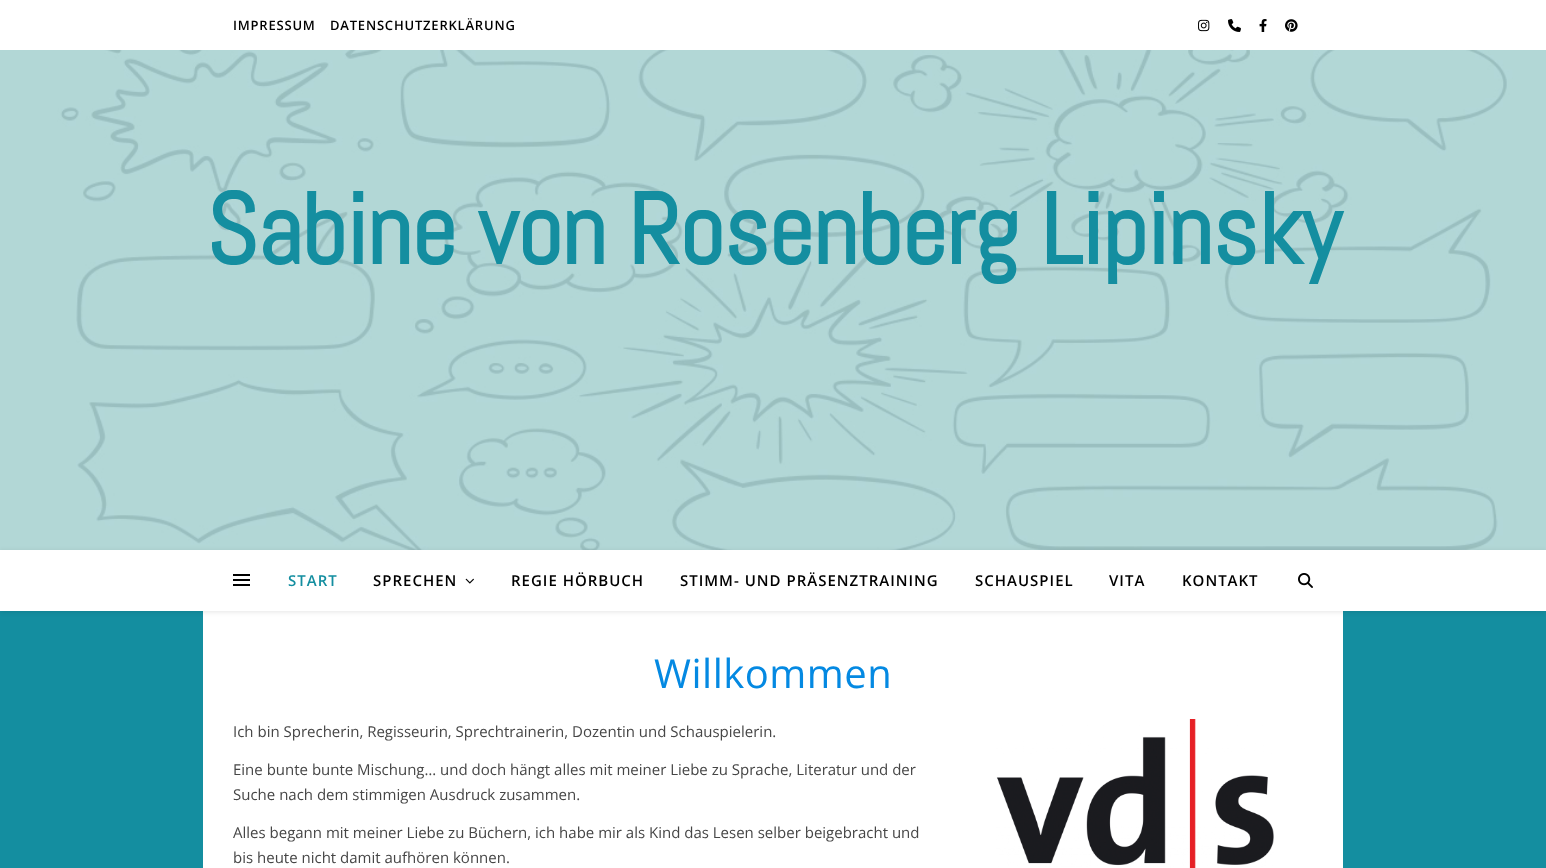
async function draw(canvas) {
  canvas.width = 1546
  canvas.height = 868
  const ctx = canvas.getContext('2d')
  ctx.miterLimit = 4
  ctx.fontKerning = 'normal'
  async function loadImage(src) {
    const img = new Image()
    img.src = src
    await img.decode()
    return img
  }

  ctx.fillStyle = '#148ea0'
  ctx.fillRect(0, 0, 1546, 868)
  ctx.fillStyle = '#fff'
  ctx.fillRect(0, 0, 1546, 50)
  ctx.letterSpacing = '0.8px'
  ctx.font = '600 13px Open Sans'
  ctx.fillStyle = '#000'
  ctx.fillText('IMPRESSUM', 233, 30)
  ctx.fillText('DATENSCHUTZERKLÄRUNG', 330, 30)
  ctx.drawImage(await loadImage('image0.png'), 1198, 19, 12, 13)
  ctx.drawImage(await loadImage('image1.png'), 1228, 19, 13, 13)
  ctx.drawImage(await loadImage('image2.png'), 1259, 19, 8, 13)
  ctx.drawImage(await loadImage('image3.png'), 1285, 19, 13, 13)
  ctx.drawImage(await loadImage('image4.png'), 0, 50, 1546, 500)
  ctx.letterSpacing = '-1px'
  ctx.font = 'bold 100px Abel'
  ctx.fillStyle = '#148ea0'
  ctx.fillText('Sabine von Rosenberg Lipinsky', 206, 264)
  ctx.fillStyle = '#fff'
  ctx.fillRect(203, 611, 1140, 257)
  ctx.fillStyle = '#0000001a'
  ctx.filter = 'blur(2.5px)'
  ctx.beginPath()
  ctx.rect(0, 551, 1546, 61)
  ctx.fill()
  ctx.filter = 'none'
  ctx.fillStyle = '#fff'
  ctx.fillRect(0, 550, 1546, 61)
  ctx.fillStyle = '#000'
  ctx.fillRect(233, 574, 17, 2)
  ctx.fillRect(233, 579, 17, 2)
  ctx.fillRect(233, 584, 17, 2)
  ctx.letterSpacing = '1px'
  ctx.font = '600 15px Open Sans'
  ctx.fillStyle = '#148ea0'
  ctx.fillText('START', 288, 586)
  ctx.fillStyle = '#000'
  ctx.fillText('SPRECHEN', 373, 586)
  ctx.drawImage(await loadImage('image5.png'), 465, 578, 9, 6)
  ctx.fillText('REGIE HÖRBUCH', 511, 586)
  ctx.fillText('STIMM- UND PRÄSENZTRAINING', 680, 586)
  ctx.fillText('SCHAUSPIEL', 975, 586)
  ctx.fillText('VITA', 1109, 586)
  ctx.fillText('KONTAKT', 1182, 586)
  ctx.drawImage(await loadImage('image6.png'), 1298, 573, 15, 15)
  ctx.letterSpacing = '0.5px'
  ctx.font = '40px Open Sans'
  ctx.fillStyle = '#0489e2'
  ctx.fillText('Willkommen', 654, 688)
  ctx.letterSpacing = '0px'
  ctx.font = '15px Open Sans'
  ctx.fillStyle = '#464646'
  ctx.fillText('Ich bin Sprecherin, Regisseurin, Sprechtrainerin, Dozentin und Schauspielerin.', 233, 737)
  ctx.fillText('Eine bunte bunte Mischung… und doch hängt alles mit meiner Liebe zu Sprache, Literatur und der', 233, 775)
  ctx.fillText('Suche nach dem stimmigen Ausdruck zusammen.', 233, 800)
  ctx.fillText('Alles begann mit meiner Liebe zu Büchern, ich habe mir als Kind das Lesen selber beigebracht und', 233, 838)
  ctx.fillText('bis heute nicht damit aufhören können.', 233, 863)
  ctx.drawImage(await loadImage('image7.png'), 996, 719, 278, 149)
}

draw(document.querySelector('canvas'))
